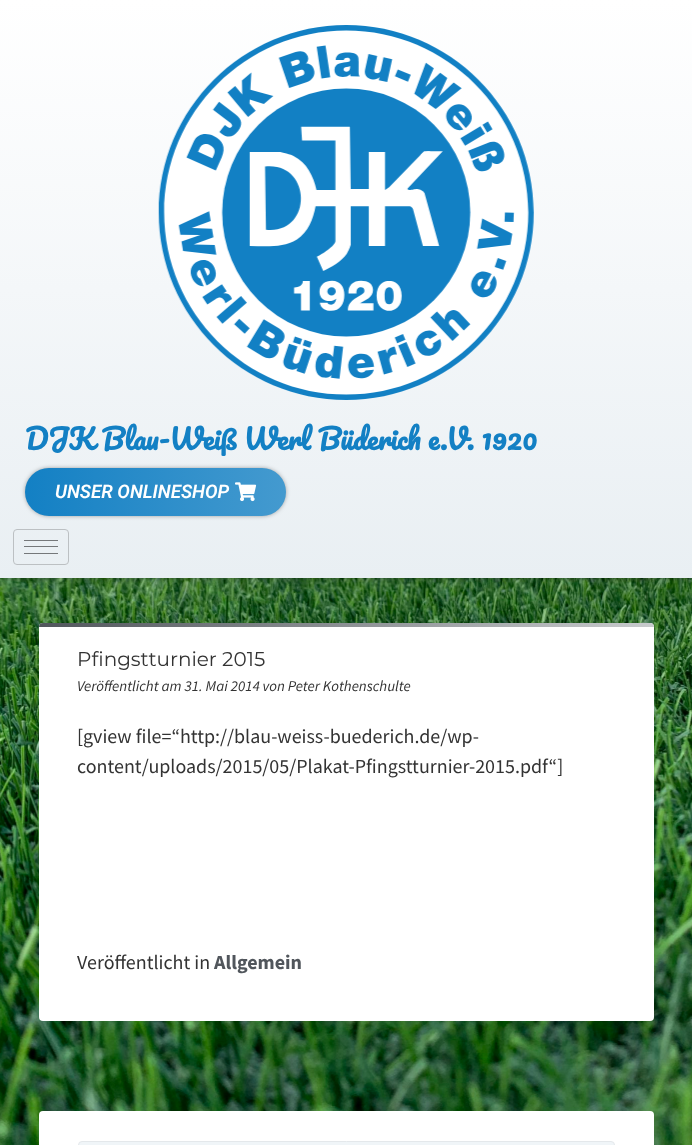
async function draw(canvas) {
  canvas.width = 692
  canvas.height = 1145
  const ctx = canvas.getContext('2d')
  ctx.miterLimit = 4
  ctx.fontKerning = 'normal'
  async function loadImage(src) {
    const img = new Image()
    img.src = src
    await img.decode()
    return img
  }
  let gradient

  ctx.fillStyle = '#fff'
  ctx.fillRect(0, 0, 692, 1145)
  ctx.drawImage(await loadImage('image2.png'), 0, 578, 692, 567)
  ctx.fillStyle = '#00000080'
  ctx.filter = 'blur(4px)'
  ctx.beginPath()
  ctx.rect(1, 1, 690, 575)
  ctx.fill()
  ctx.filter = 'none'
  ctx.fillStyle = '#0000000d'
  ctx.filter = 'blur(15px)'
  ctx.beginPath()
  ctx.roundRect(39, 623, 615, 398, 4)
  ctx.fill()
  ctx.filter = 'none'
  gradient = ctx.createLinearGradient(346, 0, 346, 578)
  gradient.addColorStop(0, '#fff')
  gradient.addColorStop(1, '#e9eff3')
  ctx.fillStyle = gradient
  ctx.fillRect(0, 0, 692, 578)
  ctx.drawImage(await loadImage('image0.png'), 158, 25, 376, 375)
  ctx.font = 'bold 27.5px Pacifico'
  ctx.fillStyle = '#1380c4'
  ctx.fillText('DJK Blau-Weiß Werl Büderich e.V. 1920', 25, 450)
  ctx.fillStyle = '#00000080'
  ctx.filter = 'blur(2.5px)'
  ctx.beginPath()
  ctx.roundRect(26, 469, 259, 46, 23)
  ctx.fill()
  ctx.filter = 'none'
  gradient = ctx.createLinearGradient(25, 492, 286, 492)
  gradient.addColorStop(0, '#1380c4')
  gradient.addColorStop(1, '#449acf')
  ctx.fillStyle = gradient
  ctx.beginPath()
  ctx.roundRect(25, 468, 261, 48, 24)
  ctx.fill()
  ctx.font = 'italic 600 18.75px Roboto'
  ctx.fillStyle = '#fff'
  ctx.fillText('UNSER ONLINESHOP', 55, 498)
  ctx.drawImage(await loadImage('image1.png'), 235, 482, 22, 20)
  ctx.beginPath()
  ctx.roundRect(13.5, 529.5, 55, 35, 3.5)
  ctx.strokeStyle = '#bcc0c3'
  ctx.stroke()
  ctx.fillStyle = '#75787a'
  ctx.fillRect(24, 540, 34, 1)
  ctx.fillRect(24, 546, 34, 1)
  ctx.fillRect(24, 553, 34, 1)
  ctx.fillStyle = '#fff'
  ctx.beginPath()
  ctx.roundRect(39, 623, 615, 398, 4)
  ctx.fill()
  gradient = ctx.createLinearGradient(39, 624, 654, 624)
  gradient.addColorStop(0, '#51565c')
  gradient.addColorStop(1, '#c8cbcd')
  ctx.fillStyle = gradient
  ctx.beginPath()
  ctx.roundRect(39, 623, 615, 4, [4, 4, 0, 0])
  ctx.fill()
  ctx.font = '100 20px Montserrat'
  ctx.fillStyle = '#333'
  ctx.fillText('Pfingstturnier 2015', 77, 666)
  ctx.font = 'italic 15px Source Sans Pro'
  ctx.fillText('Veröffentlicht am 31. Mai 2014 von Peter Kothenschulte', 77, 691)
  ctx.font = '20px Source Sans Pro'
  ctx.fillText('[gview file=“http://blau-weiss-buederich.de/wp-', 77, 743)
  ctx.fillText('content/uploads/2015/05/Plakat-Pfingstturnier-2015.pdf“]', 77, 773)
  ctx.fillText('Veröffentlicht in', 77, 969)
  ctx.font = 'bold 20px Source Sans Pro'
  ctx.fillStyle = '#51565c'
  ctx.fillText('Allgemein', 214, 969)
  ctx.fillStyle = '#fff'
  ctx.beginPath()
  ctx.roundRect(39, 1111, 615, 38, 4)
  ctx.fill()
  ctx.fillStyle = '#f0f5f8'
  ctx.beginPath()
  ctx.roundRect(78.5, 1141.5, 536, 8, 3.5)
  ctx.fill()
  ctx.strokeStyle = '#e4e8eb'
  ctx.stroke()
}

draw(document.querySelector('canvas'))
